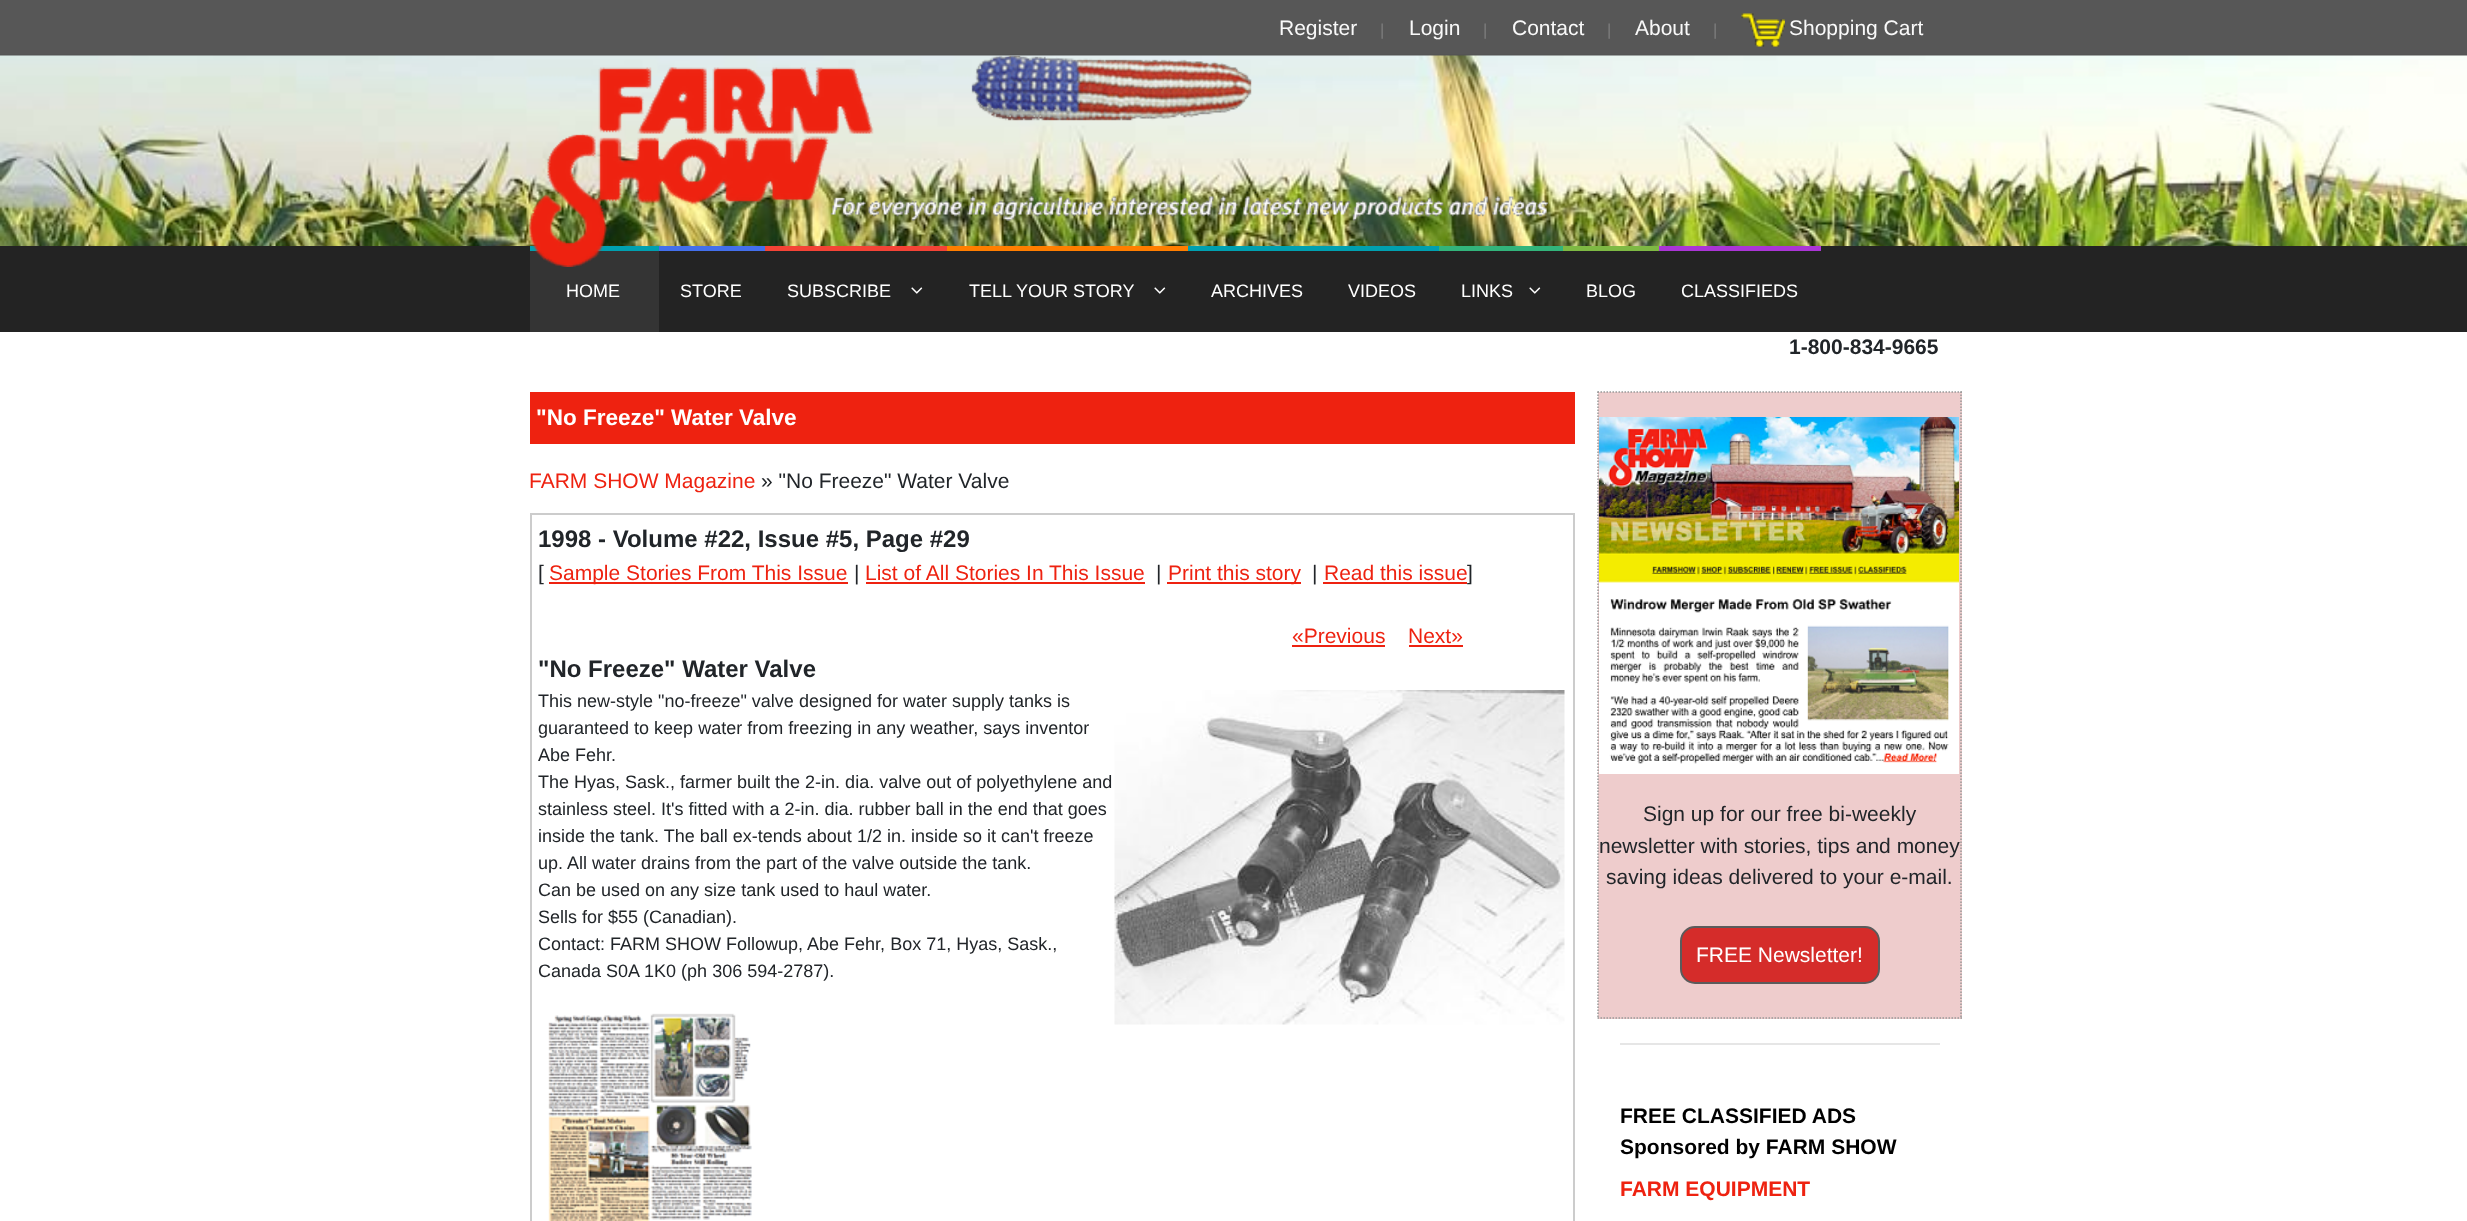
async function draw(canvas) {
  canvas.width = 2467
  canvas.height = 1221
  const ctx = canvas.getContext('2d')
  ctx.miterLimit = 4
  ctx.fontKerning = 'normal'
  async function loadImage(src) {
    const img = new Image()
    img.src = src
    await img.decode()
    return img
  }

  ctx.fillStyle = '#fff'
  ctx.fillRect(0, 0, 2467, 1221)
  ctx.fillStyle = '#575757'
  ctx.fillRect(0, 0, 2467, 54)
  ctx.fillStyle = '#545454'
  ctx.fillRect(0, 54, 2467, 2)
  ctx.font = '21px Liberation Sans'
  ctx.fillStyle = '#f9f9f9'
  ctx.fillText('Register', 1279, 35)
  ctx.font = '15px Open Sans'
  ctx.fillStyle = '#898989'
  ctx.fillText('|', 1378, 35)
  ctx.font = '21px Liberation Sans'
  ctx.fillStyle = '#f9f9f9'
  ctx.fillText('Login', 1409, 35)
  ctx.font = '15px Open Sans'
  ctx.fillStyle = '#898989'
  ctx.fillText('|', 1481, 35)
  ctx.font = '21px Liberation Sans'
  ctx.fillStyle = '#f9f9f9'
  ctx.fillText('Contact', 1512, 35)
  ctx.font = '15px Open Sans'
  ctx.fillStyle = '#898989'
  ctx.fillText('|', 1605, 35)
  ctx.font = '21px Liberation Sans'
  ctx.fillStyle = '#f9f9f9'
  ctx.fillText('About', 1635, 35)
  ctx.font = '15px Open Sans'
  ctx.fillStyle = '#898989'
  ctx.fillText('|', 1711, 35)
  ctx.drawImage(await loadImage('image0.png'), 1741, 13, 44, 34)
  ctx.font = '21px Liberation Sans'
  ctx.fillStyle = '#f9f9f9'
  ctx.fillText('Shopping Cart', 1789, 35)
  ctx.drawImage(await loadImage('image1.png'), 0, 55, 2467, 191)
  ctx.fillStyle = '#232323'
  ctx.fillRect(0, 246, 2467, 86)
  ctx.fillStyle = '#343434'
  ctx.fillRect(530, 251, 129, 81)
  ctx.fillStyle = '#00a0b0'
  ctx.fillRect(530, 246, 129, 5)
  ctx.fillStyle = '#436feb'
  ctx.fillRect(659, 246, 106, 5)
  ctx.fillStyle = '#f44336'
  ctx.fillRect(765, 246, 182, 5)
  ctx.fillStyle = '#ff7e00'
  ctx.fillRect(947, 246, 241, 5)
  ctx.fillStyle = '#00a0b0'
  ctx.fillRect(1188, 246, 251, 5)
  ctx.fillStyle = '#32b47b'
  ctx.fillRect(1439, 246, 124, 5)
  ctx.drawImage(await loadImage('image2.png'), 529, 55, 1019, 212)
  ctx.font = '18px Liberation Sans'
  ctx.fillStyle = '#fff'
  ctx.fillText('HOME', 566, 297)
  ctx.fillText('STORE', 680, 297)
  ctx.fillText('SUBSCRIBE', 787, 297)
  ctx.drawImage(await loadImage('image3.png'), 911, 287, 12, 7)
  ctx.fillText('TELL YOUR STORY', 969, 297)
  ctx.drawImage(await loadImage('image3.png'), 1154, 287, 12, 7)
  ctx.fillText('ARCHIVES', 1211, 297)
  ctx.fillText('VIDEOS', 1348, 297)
  ctx.fillText('LINKS', 1461, 297)
  ctx.drawImage(await loadImage('image3.png'), 1529, 287, 12, 7)
  ctx.fillStyle = '#7eb943'
  ctx.fillRect(1563, 246, 96, 5)
  ctx.fillStyle = '#fff'
  ctx.fillText('BLOG', 1586, 297)
  ctx.fillStyle = '#aa35d6'
  ctx.fillRect(1659, 246, 162, 5)
  ctx.fillStyle = '#fff'
  ctx.fillText('CLASSIFIEDS', 1681, 297)
  ctx.font = 'bold 21px Liberation Sans'
  ctx.fillStyle = '#212529'
  ctx.fillText('1-800-834-9665', 1789, 354)
  ctx.fillStyle = '#ee2210'
  ctx.fillRect(530, 392, 1045, 52)
  ctx.font = 'bold 22.5px Liberation Sans'
  ctx.fillStyle = '#fff'
  ctx.fillText('"No Freeze" Water Valve', 536, 425)
  ctx.font = '21px Liberation Sans'
  ctx.fillStyle = '#ee2210'
  ctx.fillText('FARM SHOW Magazine', 529, 488)
  ctx.fillStyle = '#212529'
  ctx.fillText('» "No Freeze" Water Valve', 761, 488)
  ctx.strokeStyle = '#ccc'
  ctx.lineWidth = 2
  ctx.strokeRect(531, 514, 1043, 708)
  ctx.font = 'bold 24px Liberation Sans'
  ctx.fillText('1998 - Volume #22, Issue #5, Page #29', 538, 547)
  ctx.font = '21px Liberation Sans'
  ctx.fillText('[', 538, 580)
  ctx.fillStyle = '#ee2210'
  ctx.fillRect(549, 582, 299, 2)
  ctx.fillText('Sample Stories From This Issue', 549, 580)
  ctx.fillStyle = '#212529'
  ctx.fillText('|', 854, 580)
  ctx.fillStyle = '#ee2210'
  ctx.fillText('List of All Stories In This Issue', 865, 580)
  ctx.fillRect(866, 582, 279, 2)
  ctx.fillStyle = '#212529'
  ctx.fillText('|', 1156, 580)
  ctx.fillStyle = '#ee2210'
  ctx.fillRect(1167, 582, 134, 2)
  ctx.fillText('Print this story', 1168, 580)
  ctx.fillStyle = '#212529'
  ctx.fillText('|', 1312, 580)
  ctx.fillStyle = '#ee2210'
  ctx.fillText('Read this issue', 1324, 580)
  ctx.fillRect(1323, 582, 144, 2)
  ctx.fillStyle = '#212529'
  ctx.fillText(']', 1467, 580)
  ctx.fillStyle = '#ee2210'
  ctx.fillText('«Previous', 1292, 643)
  ctx.fillRect(1292, 645, 93, 2)
  ctx.fillText('Next»', 1408, 643)
  ctx.fillRect(1409, 645, 54, 2)
  ctx.font = 'bold 24px Liberation Sans'
  ctx.fillStyle = '#212529'
  ctx.fillText('"No Freeze" Water Valve', 538, 677)
  ctx.font = '18px Liberation Sans'
  ctx.fillText('This new-style "no-freeze" valve designed for water supply tanks is', 538, 707)
  ctx.drawImage(await loadImage('image4.png'), 1114, 690, 451, 335)
  ctx.fillText('guaranteed to keep water from freezing in any weather, says inventor', 538, 734)
  ctx.fillText('Abe Fehr.', 538, 761)
  ctx.fillText('The Hyas, Sask., farmer built the 2-in. dia. valve out of polyethylene and', 538, 788)
  ctx.fillText('stainless steel. It\'s fitted with a 2-in. dia. rubber ball in the end that goes', 538, 815)
  ctx.fillText('inside the tank. The ball ex-tends about 1/2 in. inside so it can\'t freeze', 538, 842)
  ctx.fillText('up. All water drains from the part of the valve outside the tank.', 538, 869)
  ctx.fillText('Can be used on any size tank used to haul water.', 538, 896)
  ctx.fillText('Sells for $55 (Canadian).', 538, 923)
  ctx.fillText('Contact: FARM SHOW Followup, Abe Fehr, Box 71, Hyas, Sask.,', 538, 950)
  ctx.fillText('Canada S0A 1K0 (ph 306 594-2787).', 538, 977)
  ctx.drawImage(await loadImage('image5.png'), 548, 1013, 204, 208)
  ctx.fillStyle = '#ecc'
  ctx.fillRect(1598, 392, 364, 627)
  ctx.beginPath()
  ctx.moveTo(1597.5, 392)
  ctx.lineTo(1962, 392)
  ctx.strokeStyle = '#999'
  ctx.lineWidth = 1.5
  ctx.setLineDash([1.5, 1.5])
  ctx.stroke()
  ctx.beginPath()
  ctx.moveTo(1961, 391.5)
  ctx.lineTo(1961, 1018.5)
  ctx.stroke()
  ctx.beginPath()
  ctx.moveTo(1597.5, 1018)
  ctx.lineTo(1962, 1018)
  ctx.stroke()
  ctx.beginPath()
  ctx.moveTo(1598, 391.5)
  ctx.lineTo(1598, 1018.5)
  ctx.stroke()
  ctx.drawImage(await loadImage('image6.png'), 1599, 417, 360, 357)
  ctx.font = '21px Liberation Sans'
  ctx.fillStyle = '#212529'
  ctx.fillText('Sign up for our free bi-weekly', 1643, 821)
  ctx.fillText('newsletter with stories, tips and money', 1599, 853)
  ctx.fillText('saving ideas delivered to your e-mail.', 1606, 884)
  ctx.fillStyle = '#d52c2a'
  ctx.beginPath()
  ctx.roundRect(1681, 927, 198, 56, 14)
  ctx.fill()
  ctx.strokeStyle = '#5b5b5b'
  ctx.lineWidth = 2
  ctx.setLineDash([])
  ctx.stroke()
  ctx.fillStyle = '#fff'
  ctx.fillText('FREE Newsletter!', 1696, 962)
  ctx.fillStyle = '#e6e6e6'
  ctx.fillRect(1620, 1043, 320, 2)
  ctx.font = 'bold 21px Liberation Sans'
  ctx.fillStyle = '#000'
  ctx.fillText('FREE CLASSIFIED ADS', 1620, 1123)
  ctx.fillText('Sponsored by FARM SHOW', 1620, 1154)
  ctx.fillStyle = '#ee2210'
  ctx.fillText('FARM EQUIPMENT', 1620, 1196)
}

draw(document.querySelector('canvas'))
